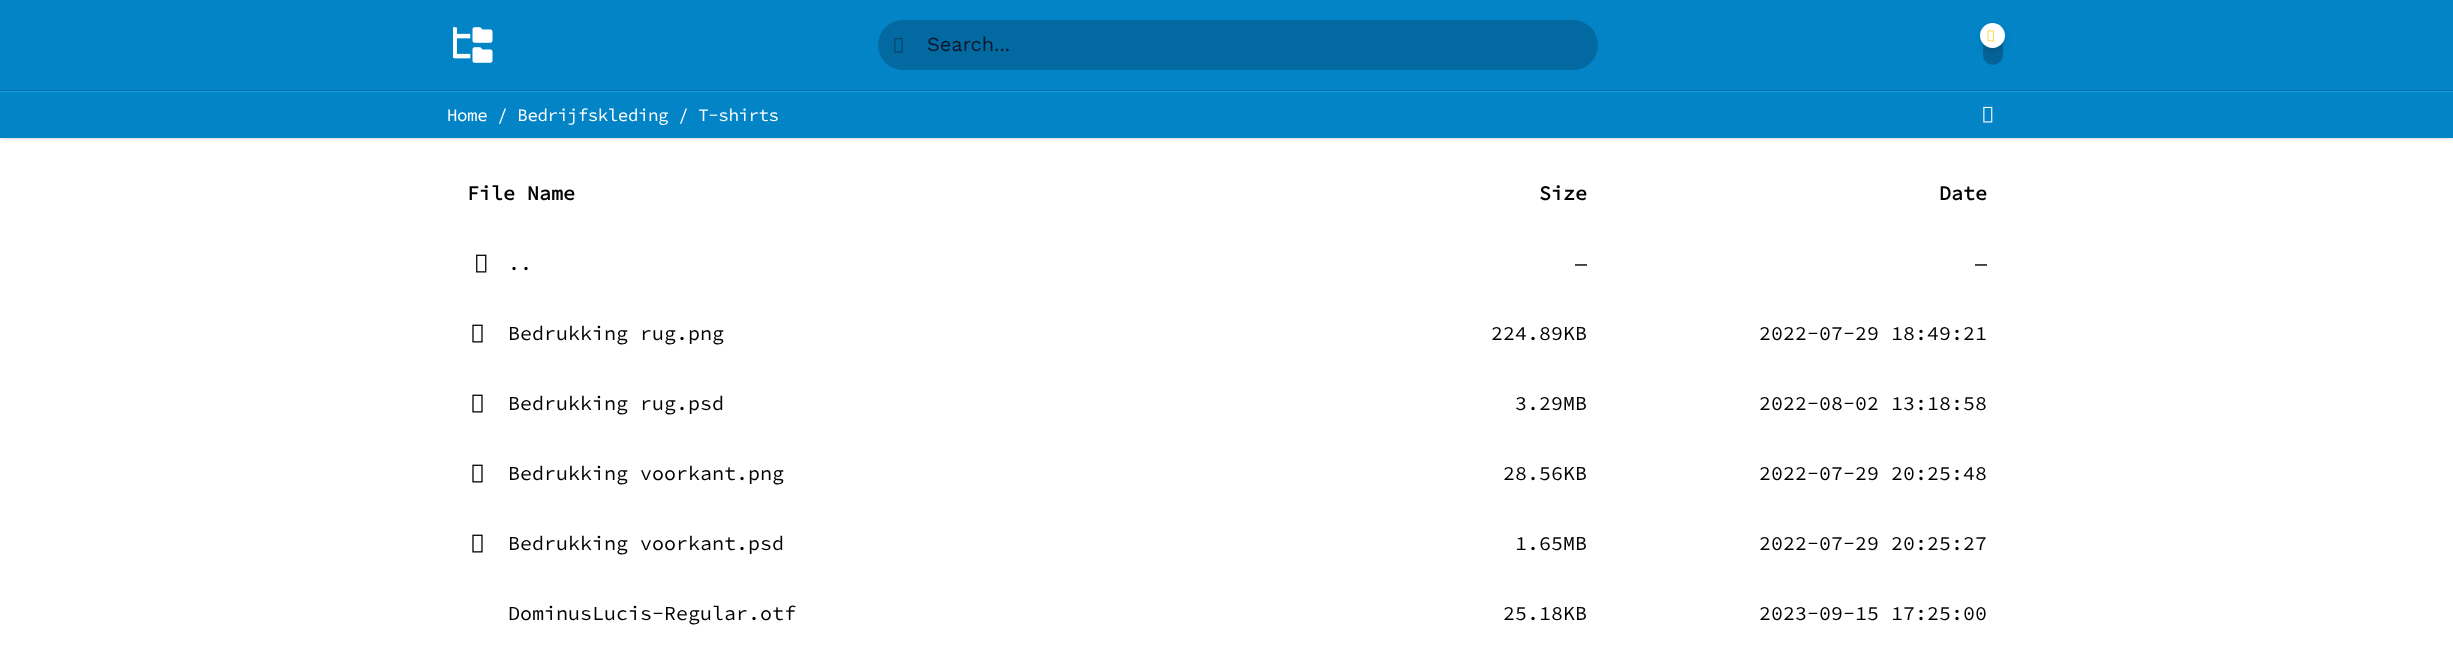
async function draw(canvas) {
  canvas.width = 2453
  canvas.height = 650
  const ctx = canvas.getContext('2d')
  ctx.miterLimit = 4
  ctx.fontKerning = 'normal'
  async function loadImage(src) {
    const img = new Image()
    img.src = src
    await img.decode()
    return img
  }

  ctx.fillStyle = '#fff'
  ctx.fillRect(0, 0, 2453, 650)
  ctx.fillStyle = '#0000001a'
  ctx.filter = 'blur(1px)'
  ctx.beginPath()
  ctx.rect(1, 3, 2452, 135)
  ctx.fill()
  ctx.filter = 'none'
  ctx.filter = 'blur(2px)'
  ctx.beginPath()
  ctx.rect(0, 1, 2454, 138)
  ctx.fill()
  ctx.filter = 'none'
  ctx.fillStyle = '#0284c7'
  ctx.fillRect(0, 0, 2453, 138)
  ctx.fillStyle = '#0369a1'
  ctx.fillRect(0, 90, 2453, 1)
  ctx.drawImage(await loadImage('image0.png'), 453, 27, 40, 36)
  ctx.beginPath()
  ctx.roundRect(878, 20, 720, 50, 25)
  ctx.fill()
  ctx.drawImage(await loadImage('image1.png'), 894, 38, 9, 15)
  ctx.font = '20px Work Sans'
  ctx.fillStyle = '#0f172a'
  ctx.fillText('Search...', 927, 51)
  ctx.fillStyle = '#066398'
  ctx.beginPath()
  ctx.roundRect(1983, 25, 20, 40, 10)
  ctx.fill()
  ctx.fillStyle = '#0000001a'
  ctx.filter = 'blur(2.5px)'
  ctx.beginPath()
  ctx.roundRect(1983, 28, 20, 20, 10)
  ctx.fill()
  ctx.filter = 'none'
  ctx.filter = 'blur(4px)'
  ctx.beginPath()
  ctx.roundRect(1981, 29, 23, 22, 11)
  ctx.fill()
  ctx.filter = 'none'
  ctx.fillStyle = '#fff'
  ctx.beginPath()
  ctx.arc(1992.5, 35.5, 12.5, 0, 2 * Math.PI)
  ctx.fill()
  ctx.drawImage(await loadImage('image2.png'), 1987, 30, 7, 12)
  ctx.fillStyle = '#0ea5e9'
  ctx.fillRect(0, 91, 2453, 1)
  ctx.letterSpacing = '-0.45px'
  ctx.font = '200 17.5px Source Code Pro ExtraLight'
  ctx.fillStyle = '#fff'
  ctx.fillText('Home / Bedrijfskleding / T-shirts', 447, 121)
  ctx.drawImage(await loadImage('image3.png'), 1983, 106, 10, 17)
  ctx.letterSpacing = '0px'
  ctx.font = 'bold 20px Source Code Pro ExtraLight'
  ctx.fillStyle = '#000'
  ctx.fillText('File Name', 467, 200)
  ctx.fillText('Size', 1539, 200)
  ctx.fillText('Date', 1939, 200)
  ctx.drawImage(await loadImage('image4.png'), 476, 254, 11, 19)
  ctx.font = '200 20px Source Code Pro ExtraLight'
  ctx.fillText('—', 1575, 270)
  ctx.fillText('—', 1975, 270)
  ctx.fillText('..', 508, 270)
  ctx.drawImage(await loadImage('image5.png'), 472, 324, 11, 19)
  ctx.fillText('Bedrukking rug.png', 508, 340)
  ctx.fillText('224.89KB', 1491, 340)
  ctx.fillText('2022-07-29 18:49:21', 1759, 340)
  ctx.drawImage(await loadImage('image5.png'), 472, 394, 11, 19)
  ctx.fillText('Bedrukking rug.psd', 508, 410)
  ctx.fillText('3.29MB', 1515, 410)
  ctx.fillText('2022-08-02 13:18:58', 1759, 410)
  ctx.drawImage(await loadImage('image5.png'), 472, 464, 11, 19)
  ctx.fillText('Bedrukking voorkant.png', 508, 480)
  ctx.fillText('28.56KB', 1503, 480)
  ctx.fillText('2022-07-29 20:25:48', 1759, 480)
  ctx.drawImage(await loadImage('image5.png'), 472, 534, 11, 19)
  ctx.fillText('Bedrukking voorkant.psd', 508, 550)
  ctx.fillText('1.65MB', 1515, 550)
  ctx.fillText('2022-07-29 20:25:27', 1759, 550)
  ctx.fillText('DominusLucis-Regular.otf', 508, 620)
  ctx.fillText('25.18KB', 1503, 620)
  ctx.fillText('2023-09-15 17:25:00', 1759, 620)
}

draw(document.querySelector('canvas'))
